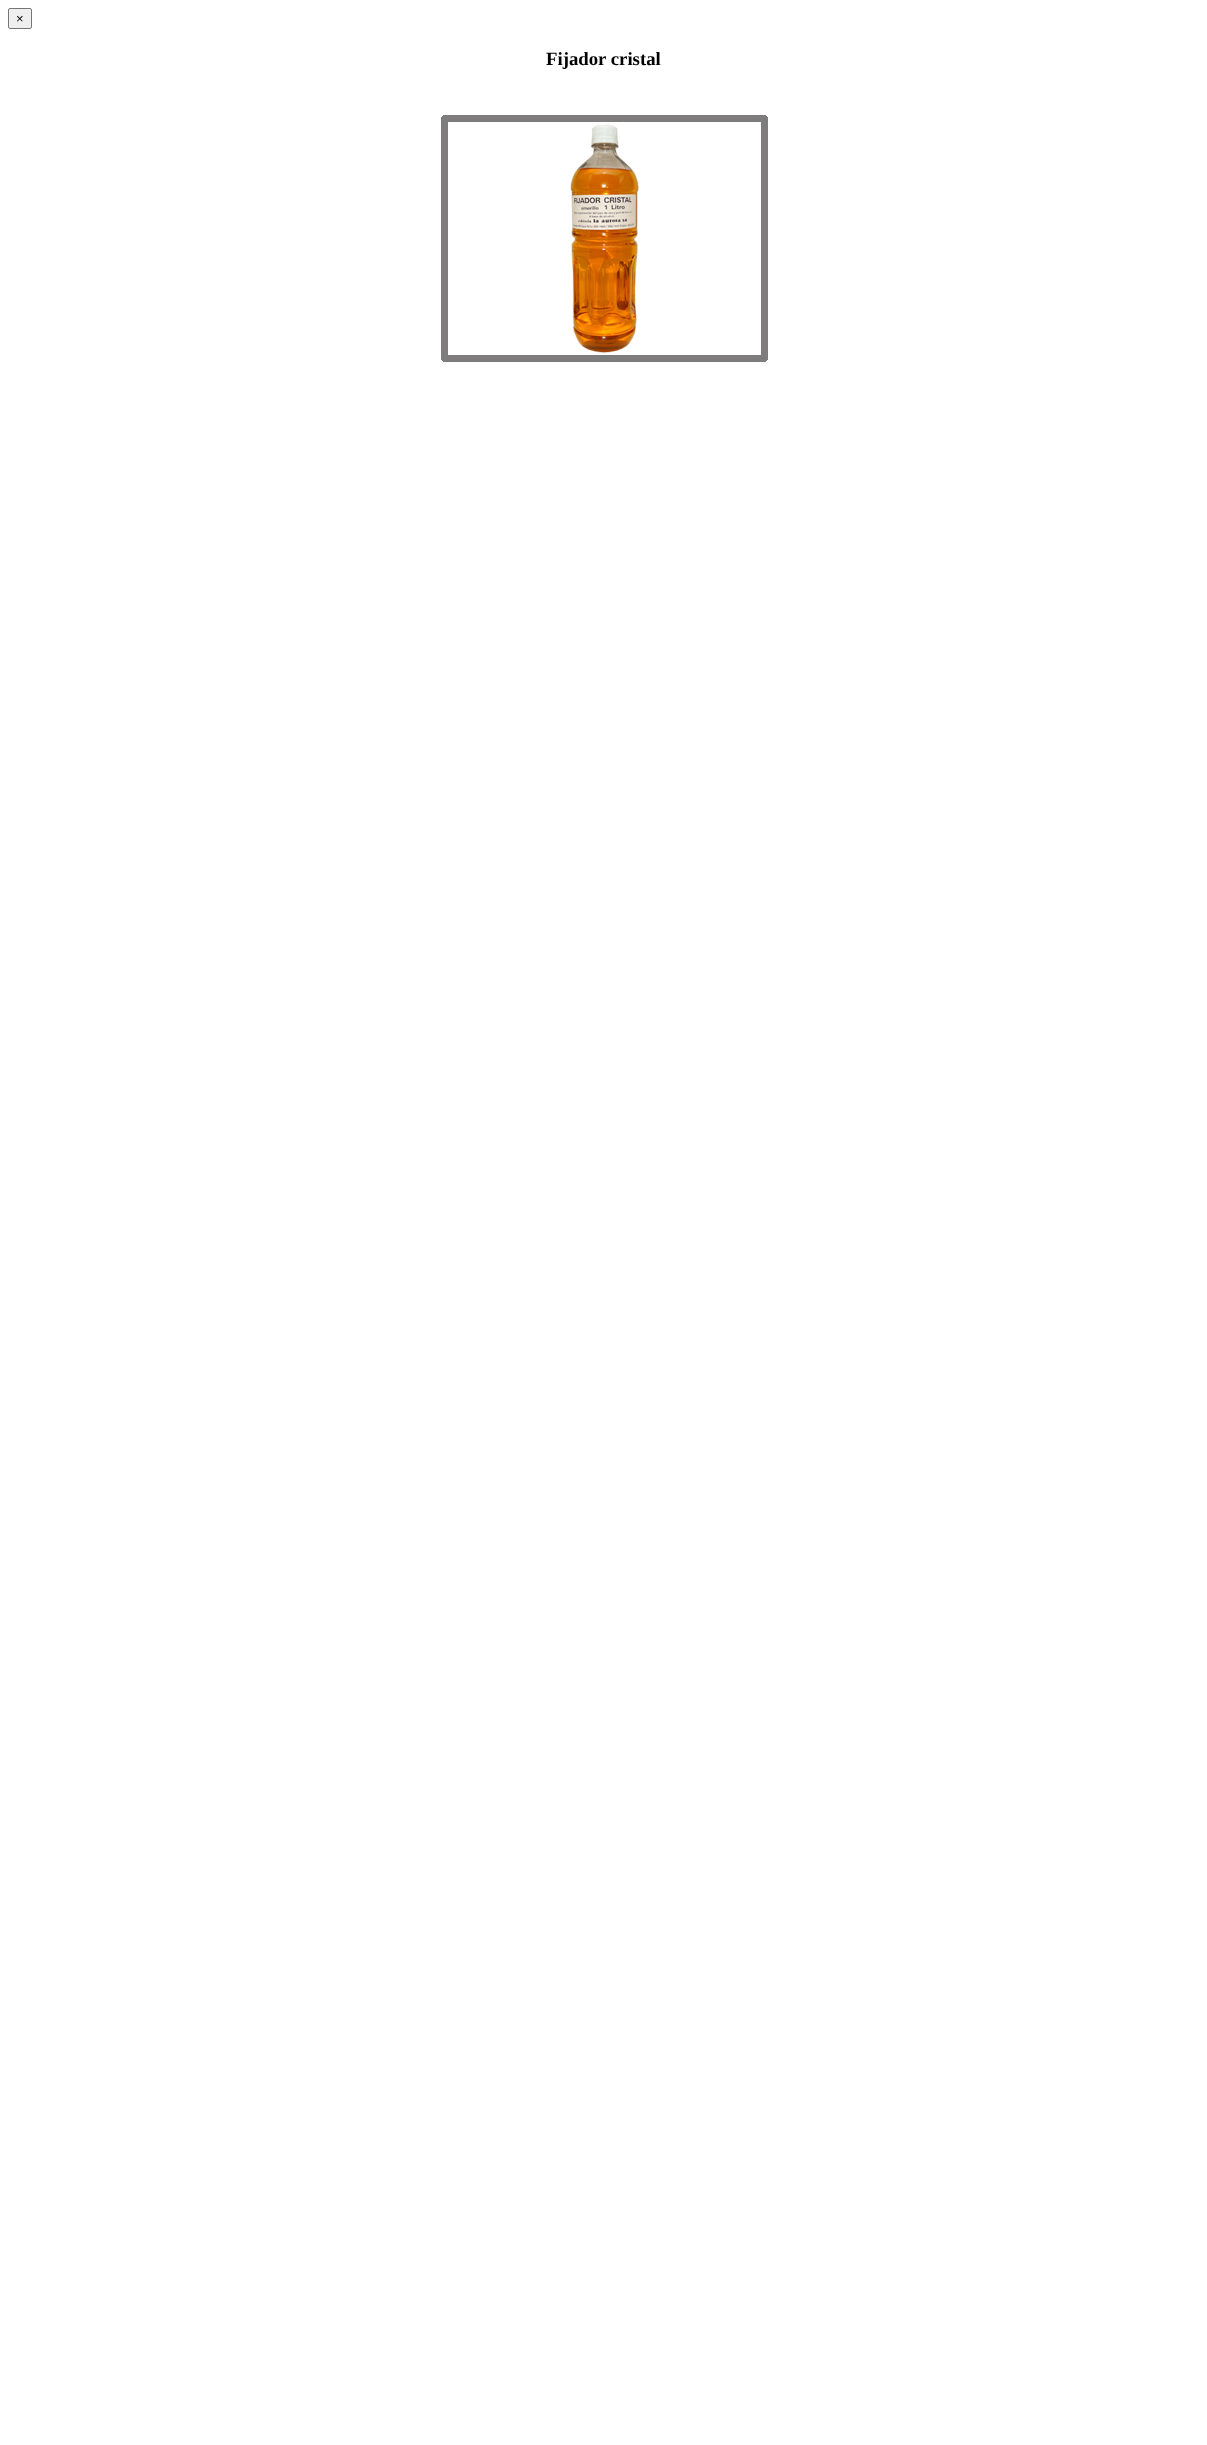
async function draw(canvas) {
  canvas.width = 1207
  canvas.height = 2445
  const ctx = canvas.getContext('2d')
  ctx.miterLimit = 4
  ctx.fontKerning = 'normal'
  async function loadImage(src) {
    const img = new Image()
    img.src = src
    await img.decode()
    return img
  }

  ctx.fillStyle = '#fff'
  ctx.fillRect(0, 0, 1207, 2445)
  ctx.fillStyle = '#efefef'
  ctx.beginPath()
  ctx.roundRect(8.5, 8.5, 23, 20, 1.5)
  ctx.fill()
  ctx.strokeStyle = '#767676'
  ctx.stroke()
  ctx.font = '13px Liberation Sans'
  ctx.fillStyle = '#000'
  ctx.fillText('×', 16, 23)
  ctx.font = 'bold 18.75px Liberation Serif'
  ctx.fillText('Fijador cristal', 546, 65)
  ctx.drawImage(await loadImage('image0.png'), 441, 115, 327, 247)
}

draw(document.querySelector('canvas'))
